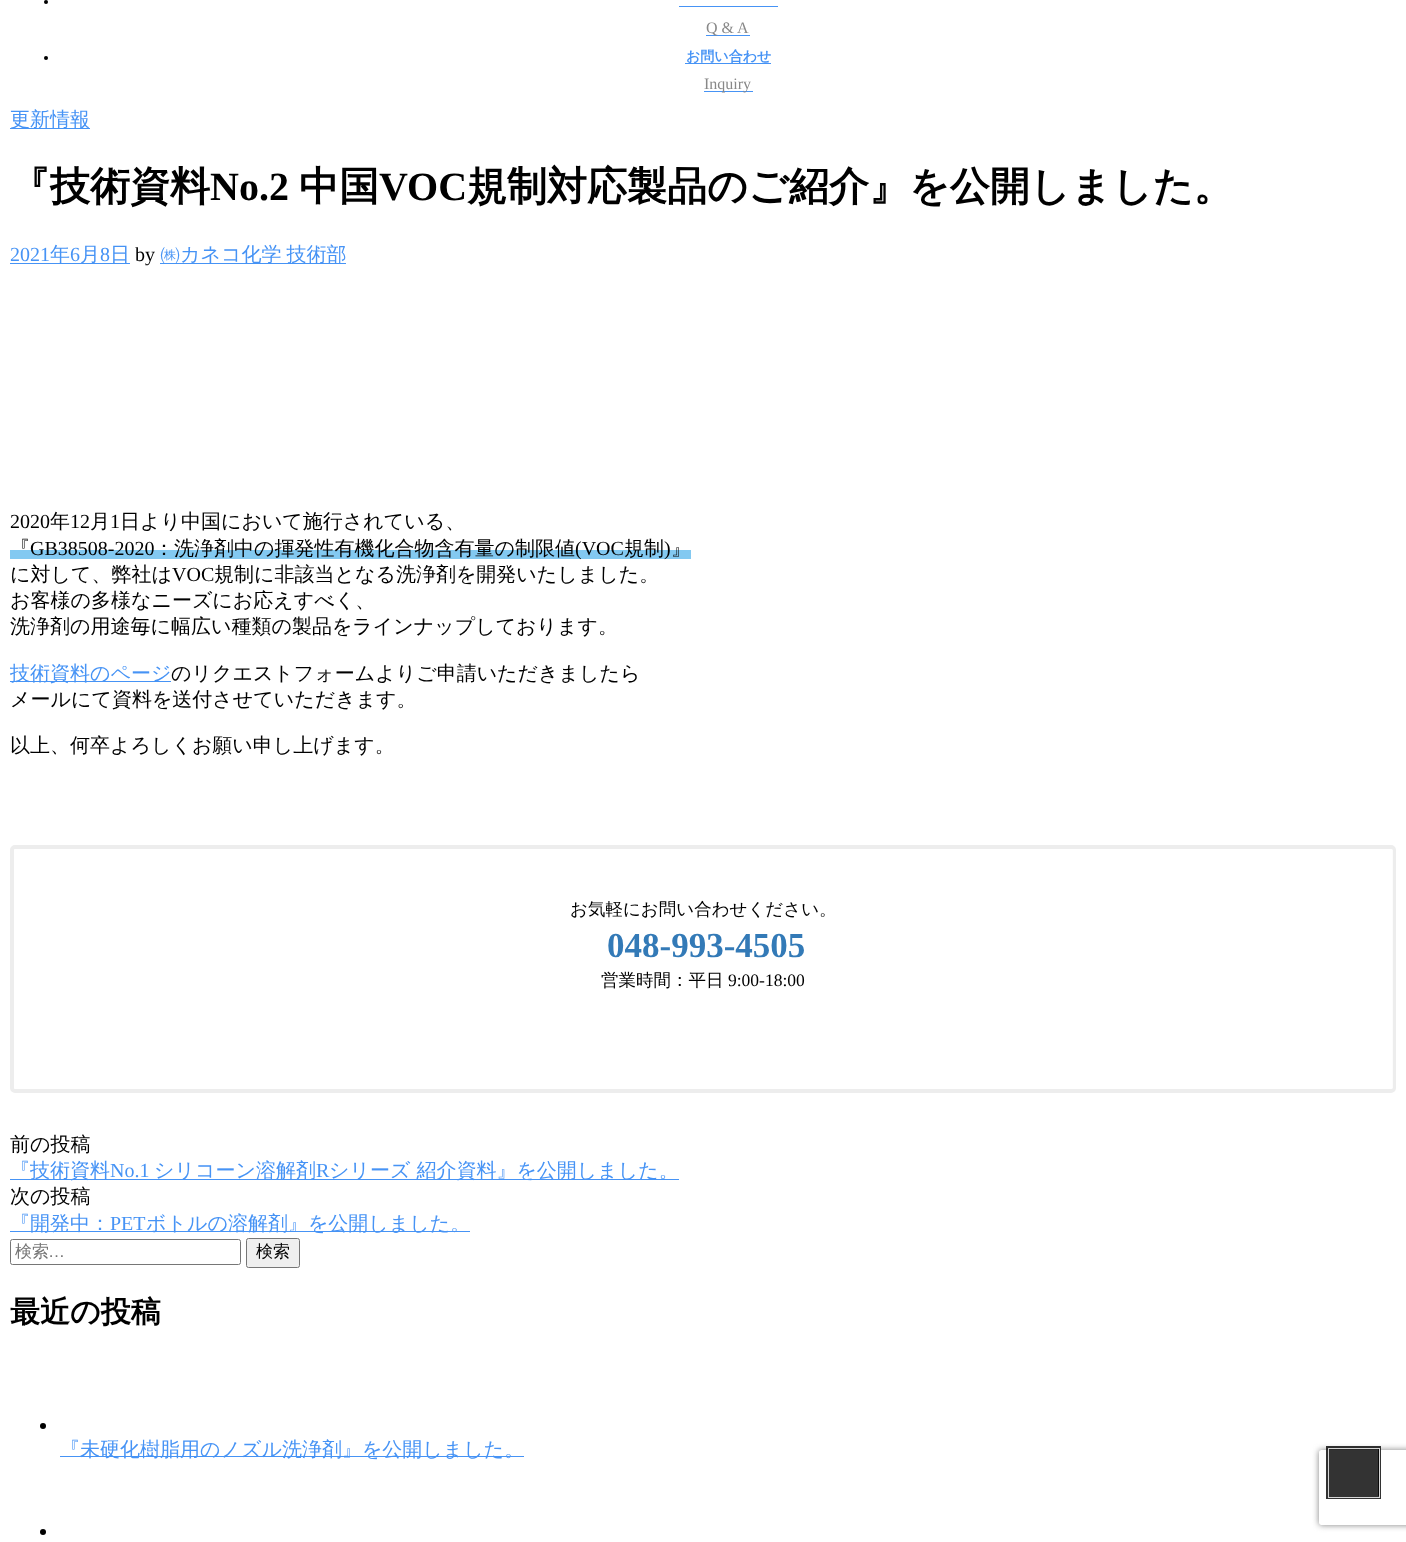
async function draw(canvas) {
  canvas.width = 1406
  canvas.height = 1542
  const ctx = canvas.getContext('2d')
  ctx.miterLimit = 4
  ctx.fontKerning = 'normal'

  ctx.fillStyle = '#fff'
  ctx.fillRect(0, 0, 1406, 1542)
  ctx.fillStyle = '#000'
  ctx.beginPath()
  ctx.arc(46, 2, 2, 0, 2 * Math.PI)
  ctx.fill()
  ctx.fillStyle = '#4693f5'
  ctx.fillRect(679, 6, 99, 1)
  ctx.fillRect(706, 35, 44, 1)
  ctx.font = '16px Liberation Serif'
  ctx.fillStyle = '#888'
  ctx.fillText('Q & A', 706, 33)
  ctx.fillStyle = '#000'
  ctx.beginPath()
  ctx.arc(46, 58, 2, 0, 2 * Math.PI)
  ctx.fill()
  ctx.fillStyle = '#4693f5'
  ctx.fillRect(685, 63, 86, 1)
  ctx.font = 'bold 14px WenQuanYi Zen Hei'
  ctx.fillText('お問い合わせ', 686, 61)
  ctx.fillRect(704, 91, 49, 1)
  ctx.font = '16px Liberation Serif'
  ctx.fillStyle = '#888'
  ctx.fillText('Inquiry', 704, 89)
  ctx.fillStyle = '#4693f5'
  ctx.fillRect(10, 128, 80, 1)
  ctx.font = '500 20px WenQuanYi Zen Hei'
  ctx.fillText('更新情報', 10, 126)
  ctx.font = 'bold 40px WenQuanYi Zen Hei'
  ctx.fillStyle = '#000'
  ctx.fillText('『技術資料', 10, 200)
  ctx.font = 'bold 40px Liberation Serif'
  ctx.fillText('No.2', 210, 200)
  ctx.font = 'bold 40px WenQuanYi Zen Hei'
  ctx.fillText('中国', 299, 200)
  ctx.font = 'bold 40px Liberation Serif'
  ctx.fillText('VOC', 379, 200)
  ctx.font = 'bold 40px WenQuanYi Zen Hei'
  ctx.fillText('規制対応製品のご紹介』を公開しました。', 467, 200)
  ctx.font = '20px Liberation Serif'
  ctx.fillStyle = '#4693f5'
  ctx.fillText('2021', 10, 261)
  ctx.fillRect(10, 263, 120, 1)
  ctx.font = '500 20px WenQuanYi Zen Hei'
  ctx.fillText('年', 50, 261)
  ctx.font = '20px Liberation Serif'
  ctx.fillText('6', 70, 261)
  ctx.font = '500 20px WenQuanYi Zen Hei'
  ctx.fillText('月', 80, 261)
  ctx.font = '20px Liberation Serif'
  ctx.fillText('8', 100, 261)
  ctx.font = '500 20px WenQuanYi Zen Hei'
  ctx.fillText('日', 110, 261)
  ctx.font = '20px Liberation Serif'
  ctx.fillStyle = '#000'
  ctx.fillText('by', 135, 261)
  ctx.fillStyle = '#4693f5'
  ctx.fillRect(160, 263, 186, 1)
  ctx.wordSpacing = '-1px'
  ctx.font = '500 20px WenQuanYi Zen Hei'
  ctx.fillText('㈱カネコ化学 技術部', 160, 261)
  ctx.wordSpacing = '0px'
  ctx.font = '20px Liberation Serif'
  ctx.fillStyle = '#000'
  ctx.fillText('2020', 10, 528)
  ctx.font = '500 20px WenQuanYi Zen Hei'
  ctx.fillText('年', 50, 528)
  ctx.font = '20px Liberation Serif'
  ctx.fillText('12', 70, 528)
  ctx.font = '500 20px WenQuanYi Zen Hei'
  ctx.fillText('月', 90, 528)
  ctx.font = '20px Liberation Serif'
  ctx.fillText('1', 110, 528)
  ctx.font = '500 20px WenQuanYi Zen Hei'
  ctx.fillText('日より中国において施行されている、', 120, 528)
  ctx.fillText('『', 10, 555)
  ctx.fillStyle = '#83c9f1'
  ctx.fillRect(10, 550, 681, 9)
  ctx.font = '20px Liberation Serif'
  ctx.fillStyle = '#000'
  ctx.fillText('GB38508-2020', 30, 555)
  ctx.font = '500 20px WenQuanYi Zen Hei'
  ctx.fillText('：洗浄剤中の揮発性有機化合物含有量の制限値', 154, 555)
  ctx.font = '20px Liberation Serif'
  ctx.fillText('(VOC', 575, 555)
  ctx.font = '500 20px WenQuanYi Zen Hei'
  ctx.fillText('規制', 624, 555)
  ctx.font = '20px Liberation Serif'
  ctx.fillText(')', 664, 555)
  ctx.font = '500 20px WenQuanYi Zen Hei'
  ctx.fillText('』', 671, 555)
  ctx.fillText('に対して、弊社は', 10, 581)
  ctx.font = '20px Liberation Serif'
  ctx.fillText('VOC', 172, 581)
  ctx.font = '500 20px WenQuanYi Zen Hei'
  ctx.fillText('規制に非該当となる洗浄剤を開発いたしました。', 214, 581)
  ctx.fillText('お客様の多様なニーズにお応えすべく、', 10, 607)
  ctx.fillText('洗浄剤の用途毎に幅広い種類の製品をラインナップしております。', 10, 633)
  ctx.fillStyle = '#4693f5'
  ctx.fillRect(10, 681, 161, 1)
  ctx.fillText('技術資料のページ', 10, 680)
  ctx.fillStyle = '#000'
  ctx.fillText('のリクエストフォームよりご申請いただきましたら', 171, 680)
  ctx.fillText('メールにて資料を送付させていただきます。', 10, 706)
  ctx.fillText('以上、何卒よろしくお願い申し上げます。', 10, 752)
  ctx.beginPath()
  ctx.roundRect(12, 847, 1382, 244, 3)
  ctx.strokeStyle = '#ededed'
  ctx.lineWidth = 4
  ctx.stroke()
  ctx.fillStyle = '#ffffffcc'
  ctx.beginPath()
  ctx.moveTo(15, 849)
  ctx.lineTo(14, 850)
  ctx.lineTo(14, 1088)
  ctx.lineTo(15, 1089)
  ctx.lineTo(1392, 1089)
  ctx.lineTo(1393, 1088)
  ctx.lineTo(1393, 850)
  ctx.lineTo(1392, 849)
  ctx.closePath()
  ctx.moveTo(15, 850)
  ctx.lineTo(15, 1088)
  ctx.lineTo(1392, 1088)
  ctx.lineTo(1392, 850)
  ctx.closePath()
  ctx.fill('evenodd')
  ctx.font = '500 17.5px WenQuanYi Zen Hei'
  ctx.fillStyle = '#000'
  ctx.fillText('お気軽にお問い合わせください。', 570, 915)
  ctx.font = 'bold 35px Liberation Serif'
  ctx.fillStyle = '#337ab7'
  ctx.fillText('048-993-4505', 607, 957)
  ctx.font = '500 17.5px WenQuanYi Zen Hei'
  ctx.fillStyle = '#000'
  ctx.fillText('営業時間：平日', 601, 986)
  ctx.font = '17.5px Liberation Serif'
  ctx.fillText('9:00-18:00', 728, 986)
  ctx.font = '500 20px WenQuanYi Zen Hei'
  ctx.fillText('前の投稿', 10, 1151)
  ctx.fillStyle = '#4693f5'
  ctx.fillRect(10, 1179, 669, 1)
  ctx.fillText('『技術資料', 10, 1177)
  ctx.font = '20px Liberation Serif'
  ctx.fillText('No.1', 110, 1177)
  ctx.font = '500 20px WenQuanYi Zen Hei'
  ctx.fillText('シリコーン溶解剤', 154, 1177)
  ctx.font = '20px Liberation Serif'
  ctx.fillText('R', 316, 1177)
  ctx.font = '500 20px WenQuanYi Zen Hei'
  ctx.fillText('シリーズ 紹介資料』を公開しました。', 329, 1177)
  ctx.fillStyle = '#000'
  ctx.fillText('次の投稿', 10, 1203)
  ctx.fillStyle = '#4693f5'
  ctx.fillRect(10, 1231, 460, 1)
  ctx.fillText('『開発中：', 10, 1230)
  ctx.font = '20px Liberation Serif'
  ctx.fillText('PET', 110, 1230)
  ctx.font = '500 20px WenQuanYi Zen Hei'
  ctx.fillText('ボトルの溶解剤』を公開しました。', 146, 1230)
  ctx.beginPath()
  ctx.roundRect(10.5, 1239.5, 230, 25, 2)
  ctx.strokeStyle = '#767676'
  ctx.lineWidth = 1
  ctx.stroke()
  ctx.font = '500 17px WenQuanYi Zen Hei'
  ctx.fillStyle = '#757575'
  ctx.fillText('検索', 15, 1257)
  ctx.font = '17px Liberation Sans'
  ctx.fillText('…', 48, 1257)
  ctx.fillStyle = '#efefef'
  ctx.beginPath()
  ctx.roundRect(246.5, 1238.5, 53, 29, 2)
  ctx.fill()
  ctx.stroke()
  ctx.font = '500 17px WenQuanYi Zen Hei'
  ctx.fillStyle = '#000'
  ctx.fillText('検索', 256, 1257)
  ctx.font = 'bold 30px WenQuanYi Zen Hei'
  ctx.fillText('最近の投稿', 10, 1322)
  ctx.beginPath()
  ctx.arc(43, 1426, 3, 0, 2 * Math.PI)
  ctx.fill()
  ctx.fillStyle = '#4693f5'
  ctx.fillRect(60, 1456, 464, 1)
  ctx.font = '500 20px WenQuanYi Zen Hei'
  ctx.fillText('『未硬化樹脂用のノズル洗浄剤』を公開しました。', 60, 1456)
  ctx.fillStyle = '#000'
  ctx.beginPath()
  ctx.arc(43, 1532, 3, 0, 2 * Math.PI)
  ctx.fill()
  ctx.save()
  ctx.beginPath()
  ctx.moveTo(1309, 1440)
  ctx.lineTo(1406, 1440)
  ctx.lineTo(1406, 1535)
  ctx.lineTo(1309, 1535)
  ctx.closePath()
  ctx.moveTo(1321.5, 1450)
  ctx.lineTo(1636.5, 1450)
  ctx.bezierCurveTo(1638, 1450, 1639, 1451, 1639, 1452.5)
  ctx.lineTo(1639, 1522.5)
  ctx.bezierCurveTo(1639, 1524, 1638, 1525, 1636.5, 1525)
  ctx.lineTo(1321.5, 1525)
  ctx.bezierCurveTo(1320, 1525, 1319, 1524, 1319, 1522.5)
  ctx.lineTo(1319, 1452.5)
  ctx.bezierCurveTo(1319, 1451, 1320, 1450, 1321.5, 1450)
  ctx.closePath()
  ctx.clip('evenodd')
  ctx.fillStyle = '#808080'
  ctx.filter = 'blur(3px)'
  ctx.beginPath()
  ctx.roundRect(1319, 1450, 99, 75, 2.5)
  ctx.fill()
  ctx.filter = 'none'
  ctx.restore()
  ctx.strokeStyle = '#000000cc'
  ctx.lineWidth = 3
  ctx.strokeRect(1327.5, 1447.5, 52, 50)
  ctx.strokeStyle = '#ffffffcc'
  ctx.lineWidth = 1
  ctx.strokeRect(1328.5, 1448.5, 51, 49)
  ctx.fillStyle = '#000000cc'
  ctx.fillRect(1329, 1449, 50, 47)
}

draw(document.querySelector('canvas'))
